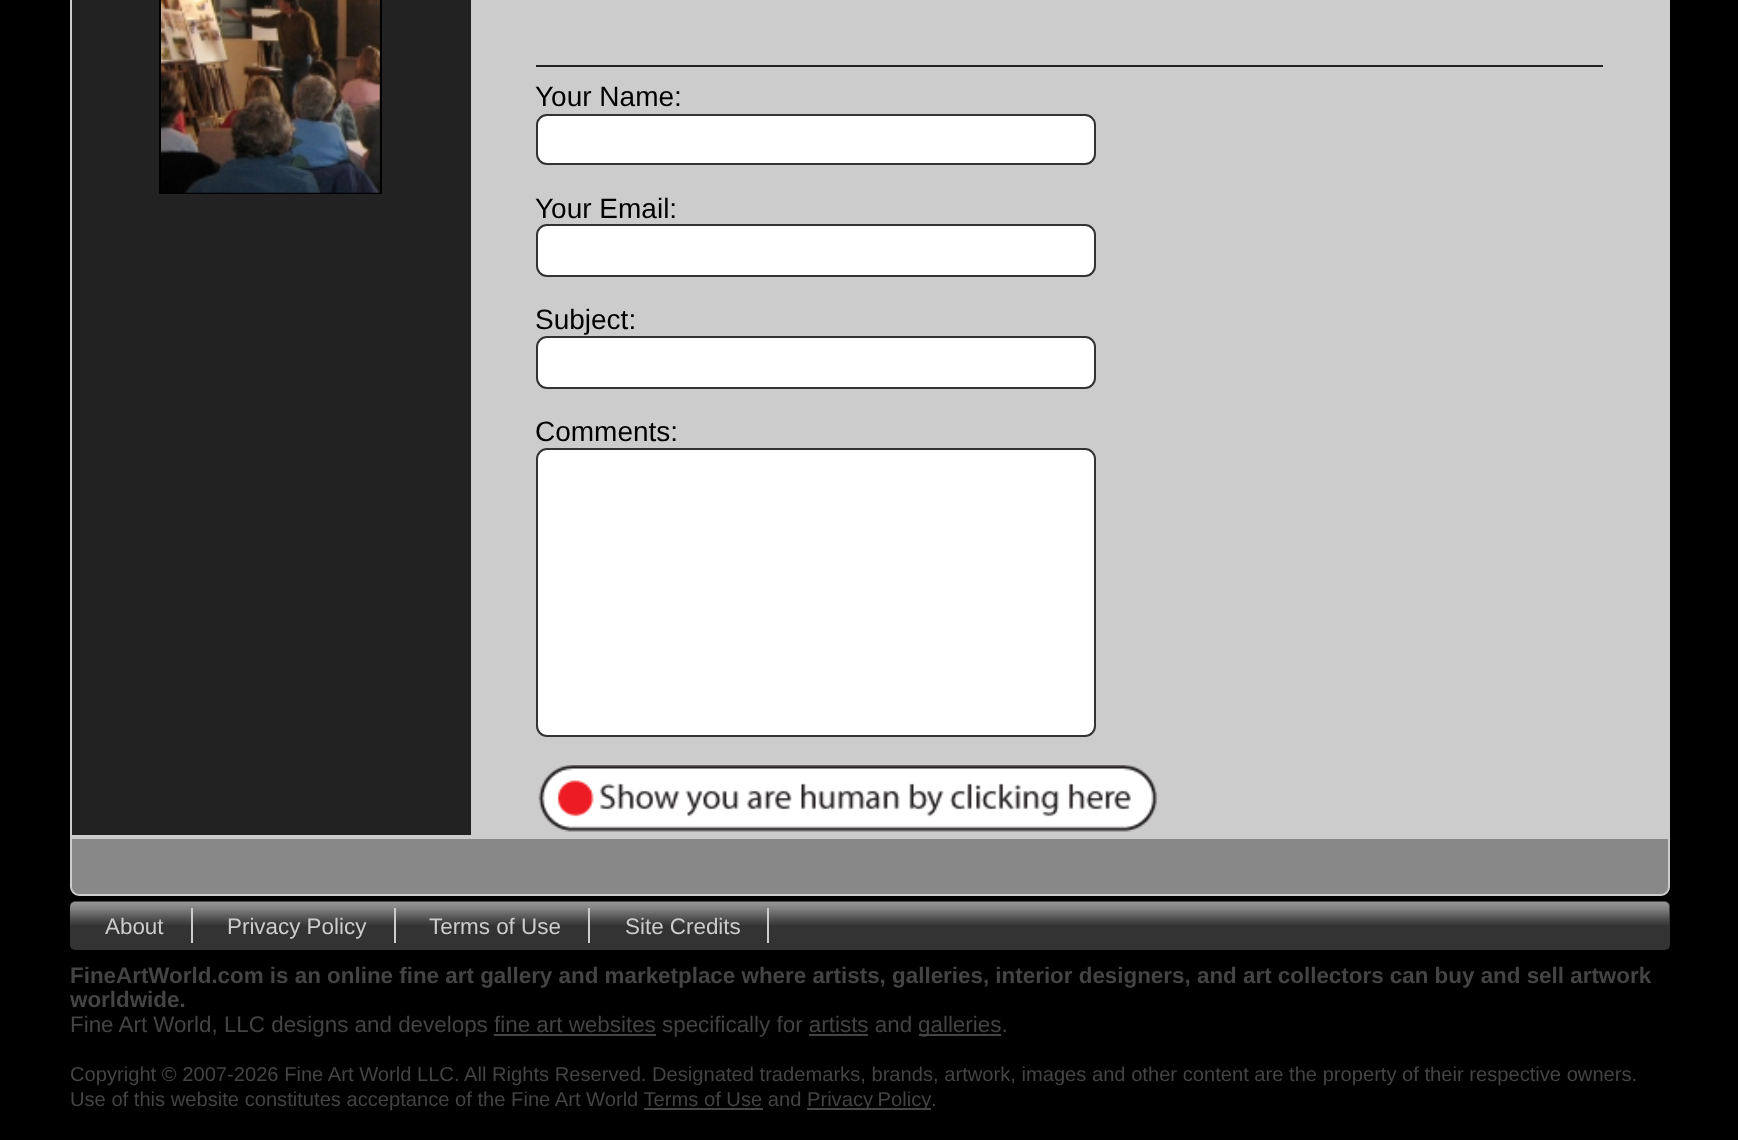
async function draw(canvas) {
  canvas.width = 1738
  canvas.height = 1140
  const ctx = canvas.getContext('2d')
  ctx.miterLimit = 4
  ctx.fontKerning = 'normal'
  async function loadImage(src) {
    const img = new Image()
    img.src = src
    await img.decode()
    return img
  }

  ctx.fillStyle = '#000'
  ctx.fillRect(0, 0, 1738, 1140)
  ctx.strokeStyle = '#ccc'
  ctx.lineWidth = 2
  ctx.strokeRect(71, -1, 1598, 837)
  ctx.fillStyle = '#222'
  ctx.fillRect(72, 0, 399, 835)
  ctx.strokeStyle = '#000'
  ctx.strokeRect(160, -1, 221, 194)
  ctx.drawImage(await loadImage('image0.png'), 161, 0, 219, 193)
  ctx.fillStyle = '#ccc'
  ctx.fillRect(471, 0, 1197, 835)
  ctx.fillStyle = '#222'
  ctx.fillRect(536, 65, 1067, 2)
  ctx.font = '28px Liberation Sans'
  ctx.fillStyle = '#000'
  ctx.fillText('Your Name:', 535, 106)
  ctx.fillStyle = '#fff'
  ctx.beginPath()
  ctx.roundRect(537, 115, 558, 49, 10)
  ctx.fill()
  ctx.strokeStyle = '#333'
  ctx.stroke()
  ctx.fillStyle = '#000'
  ctx.fillText('Your Email:', 535, 218)
  ctx.fillStyle = '#fff'
  ctx.beginPath()
  ctx.roundRect(537, 225, 558, 51, 10)
  ctx.fill()
  ctx.stroke()
  ctx.fillStyle = '#000'
  ctx.fillText('Subject:', 535, 329)
  ctx.fillStyle = '#fff'
  ctx.beginPath()
  ctx.roundRect(537, 337, 558, 51, 10)
  ctx.fill()
  ctx.stroke()
  ctx.fillStyle = '#000'
  ctx.fillText('Comments:', 535, 441)
  ctx.fillStyle = '#fff'
  ctx.beginPath()
  ctx.roundRect(537, 449, 558, 287, 10)
  ctx.fill()
  ctx.stroke()
  ctx.drawImage(await loadImage('image1.png'), 538, 765, 620, 67)
  ctx.fillStyle = '#888'
  ctx.beginPath()
  ctx.roundRect(71, 838, 1598, 57, [0, 0, 8, 8])
  ctx.fill()
  ctx.strokeStyle = '#ccc'
  ctx.stroke()
  ctx.fillStyle = '#333'
  ctx.beginPath()
  ctx.roundRect(70, 901, 1600, 49, 5)
  ctx.fill()
  ctx.drawImage(await loadImage('image2.png'), 70, 901, 1600, 24)
  ctx.font = '22.4px Liberation Sans'
  ctx.fillStyle = '#ccc'
  ctx.fillText('About', 105, 934)
  ctx.fillRect(191, 908, 2, 35)
  ctx.fillText('Privacy Policy', 227, 934)
  ctx.fillRect(394, 908, 2, 35)
  ctx.fillText('Terms of Use', 429, 934)
  ctx.fillRect(588, 908, 2, 35)
  ctx.fillText('Site Credits', 625, 934)
  ctx.fillRect(767, 908, 2, 35)
  ctx.font = 'bold 22.4px Liberation Sans'
  ctx.fillStyle = '#444'
  ctx.fillText('FineArtWorld.com is an online fine art gallery and marketplace where artists, galleries, interior designers, and art collectors can buy and sell artwork', 70, 983)
  ctx.fillText('worldwide.', 70, 1007)
  ctx.font = '22.4px Liberation Sans'
  ctx.fillText('Fine Art World, LLC designs and develops fine art websites specifically for artists and', 70, 1032)
  ctx.fillRect(919, 1034, 82, 2)
  ctx.fillText('galleries.', 918, 1032)
  ctx.fillRect(494, 1034, 162, 2)
  ctx.fillRect(809, 1034, 59, 2)
  ctx.font = '20.15px Liberation Sans'
  ctx.fillText('Copyright © 2007-2026 Fine Art World LLC. All Rights Reserved. Designated trademarks, brands, artwork, images and other content are the property of their respective owners.', 70, 1081)
  ctx.fillText('Use of this website constitutes acceptance of the Fine Art World Terms of Use and', 70, 1106)
  ctx.fillRect(644, 1108, 119, 2)
  ctx.fillRect(807, 1108, 124, 2)
  ctx.wordSpacing = '-1px'
  ctx.fillText('Privacy Policy', 807, 1106)
  ctx.wordSpacing = '0px'
  ctx.fillText('.', 931, 1106)
}

draw(document.querySelector('canvas'))
